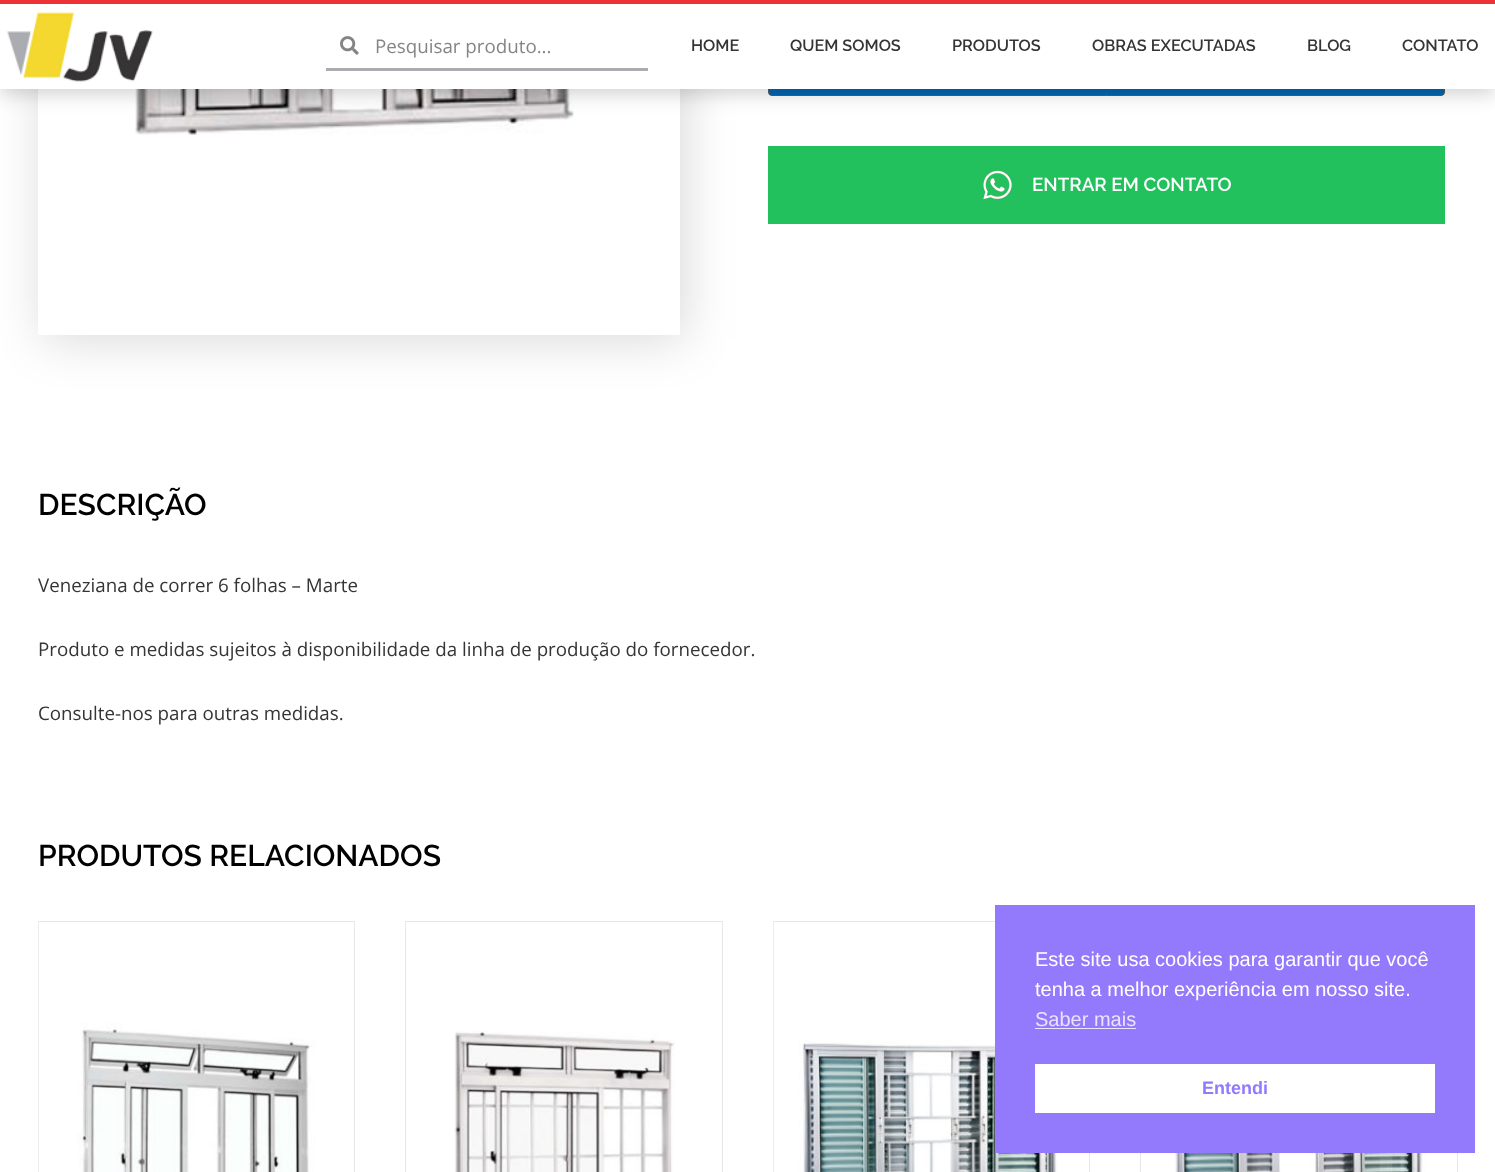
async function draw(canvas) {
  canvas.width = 1495
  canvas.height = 1172
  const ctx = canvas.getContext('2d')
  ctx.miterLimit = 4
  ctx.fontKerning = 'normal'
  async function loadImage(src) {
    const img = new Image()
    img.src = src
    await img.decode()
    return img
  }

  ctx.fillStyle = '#fff'
  ctx.fillRect(0, 0, 1495, 1172)
  ctx.save()
  ctx.beginPath()
  ctx.moveTo(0, 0)
  ctx.lineTo(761, 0)
  ctx.lineTo(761, 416)
  ctx.lineTo(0, 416)
  ctx.closePath()
  ctx.moveTo(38, -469)
  ctx.lineTo(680, -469)
  ctx.lineTo(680, 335)
  ctx.lineTo(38, 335)
  ctx.closePath()
  ctx.clip('evenodd')
  ctx.fillStyle = '#00000026'
  ctx.filter = 'blur(25px)'
  ctx.beginPath()
  ctx.rect(43, -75, 642, 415)
  ctx.fill()
  ctx.filter = 'none'
  ctx.restore()
  ctx.drawImage(await loadImage('image2.png'), 135, 89, 439, 46)
  ctx.fillStyle = '#0066b4'
  ctx.beginPath()
  ctx.roundRect(768.5, 10.5, 676, 85, 3.5)
  ctx.fill()
  ctx.strokeStyle = '#5a5a5a'
  ctx.stroke()
  ctx.fillStyle = '#0000002e'
  ctx.filter = 'blur(9.5px)'
  ctx.beginPath()
  ctx.rect(0, 5, 1495, 89)
  ctx.fill()
  ctx.filter = 'none'
  ctx.fillStyle = '#fff'
  ctx.fillRect(0, 4, 1495, 85)
  ctx.fillStyle = '#ec3237'
  ctx.fillRect(0, 0, 1495, 4)
  ctx.drawImage(await loadImage('image0.png'), 7, 12, 146, 70)
  ctx.fillStyle = '#abacb1'
  ctx.fillRect(326, 68, 322, 3)
  ctx.drawImage(await loadImage('image1.png'), 340, 36, 19, 19)
  ctx.font = '18.75px Open Sans'
  ctx.fillStyle = '#868586'
  ctx.fillText('Pesquisar produto...', 375, 53)
  ctx.font = '600 16.25px Raleway'
  ctx.fillStyle = '#363435'
  ctx.fillText('HOME', 691, 51)
  ctx.fillText('QUEM SOMOS', 790, 51)
  ctx.fillText('PRODUTOS', 952, 51)
  ctx.fillText('OBRAS EXECUTADAS', 1092, 51)
  ctx.fillText('BLOG', 1307, 51)
  ctx.fillText('CONTATO', 1402, 51)
  ctx.fillStyle = '#22c15e'
  ctx.fillRect(768, 146, 677, 78)
  ctx.drawImage(await loadImage('image3.png'), 983, 170, 29, 30)
  ctx.font = '600 18.75px Raleway'
  ctx.fillStyle = '#fff'
  ctx.fillText('ENTRAR EM CONTATO', 1032, 191)
  ctx.font = '600 30px Raleway'
  ctx.fillStyle = '#000'
  ctx.fillText('DESCRIÇÃO', 38, 515)
  ctx.font = '18.75px Open Sans'
  ctx.fillStyle = '#363435'
  ctx.fillText('Veneziana de correr 6 folhas – Marte', 38, 592)
  ctx.fillText('Produto e medidas sujeitos à disponibilidade da linha de produção do fornecedor.', 38, 656)
  ctx.fillText('Consulte-nos para outras medidas.', 38, 720)
  ctx.font = '600 30px Raleway'
  ctx.fillStyle = '#000'
  ctx.fillText('PRODUTOS RELACIONADOS', 38, 866)
  ctx.strokeStyle = '#e7e7e7'
  ctx.strokeRect(38.5, 921.5, 316, 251)
  ctx.drawImage(await loadImage('image4.png'), 38, 922, 277, 250)
  ctx.strokeRect(405.5, 921.5, 317, 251)
  ctx.drawImage(await loadImage('image5.png'), 454, 1031, 221, 141)
  ctx.strokeRect(773.5, 921.5, 316, 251)
  ctx.drawImage(await loadImage('image6.png'), 773, 922, 286, 250)
  ctx.strokeRect(1140.5, 921.5, 317, 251)
  ctx.drawImage(await loadImage('image7.png'), 1173, 1153, 254, 19)
  ctx.fillStyle = '#937afc'
  ctx.fillRect(995, 905, 480, 248)
  ctx.font = '20px Liberation Sans'
  ctx.fillStyle = '#fff'
  ctx.fillText('Este site usa cookies para garantir que você', 1035, 966)
  ctx.fillText('tenha a melhor experiência em nosso site.', 1035, 996)
  ctx.fillStyle = '#e9e4fe'
  ctx.fillText('Saber mais', 1035, 1026)
  ctx.fillRect(1035, 1028, 101, 1)
  ctx.fillStyle = '#fff'
  ctx.fillRect(1035, 1064, 400, 49)
  ctx.font = 'bold 18px Liberation Sans'
  ctx.fillStyle = '#937afc'
  ctx.fillText('Entendi', 1202, 1094)
}

draw(document.querySelector('canvas'))
